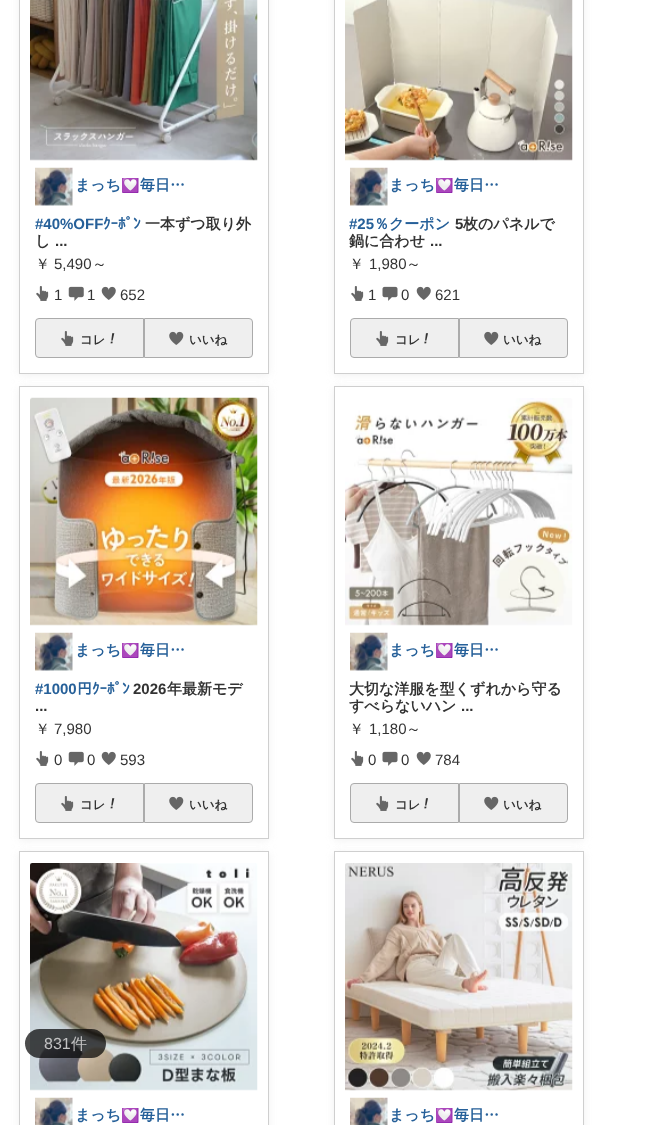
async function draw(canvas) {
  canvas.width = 653
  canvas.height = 1125
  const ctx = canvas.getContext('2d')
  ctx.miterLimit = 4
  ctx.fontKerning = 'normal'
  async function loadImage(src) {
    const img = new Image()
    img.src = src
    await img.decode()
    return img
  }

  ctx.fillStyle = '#fff'
  ctx.fillRect(0, 0, 653, 1125)
  ctx.fillStyle = '#efefef'
  ctx.filter = 'blur(4px)'
  ctx.beginPath()
  ctx.roundRect(19, -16, 250, 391, 4)
  ctx.fill()
  ctx.filter = 'none'
  ctx.fillStyle = '#fff'
  ctx.beginPath()
  ctx.roundRect(19, -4, 250, 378, 4)
  ctx.fill()
  ctx.strokeStyle = '#cfcfcf'
  ctx.strokeRect(19.5, -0.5, 249, 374)
  ctx.drawImage(await loadImage('image0.png'), 30, 0, 228, 161)
  ctx.drawImage(await loadImage('image1.png'), 35, 167, 38, 39)
  ctx.font = 'bold 15px WenQuanYi Zen Hei'
  ctx.fillStyle = '#266099'
  ctx.fillText('まっち', 75, 190)
  ctx.save()
  ctx.beginPath()
  ctx.rect(75, 178, 125, 16)
  ctx.clip()
  ctx.font = 'bold 15px Noto Color Emoji'
  ctx.fillText('💟', 121, 190)
  ctx.restore()
  ctx.fillText('毎日…', 140, 190)
  ctx.font = 'bold 15px Liberation Sans'
  ctx.fillText('#40%OFF', 35, 229)
  ctx.font = 'bold 15px IPAGothic'
  ctx.fillText('ｸｰﾎﾟﾝ', 103, 229)
  ctx.font = 'bold 15px WenQuanYi Zen Hei'
  ctx.fillStyle = '#333'
  ctx.fillText('一本ずつ取り外', 145, 229)
  ctx.fillText('し', 35, 246)
  ctx.font = 'bold 15px Liberation Sans'
  ctx.fillText('...', 55, 246)
  ctx.font = '500 15px WenQuanYi Zen Hei'
  ctx.fillText('￥', 35, 269)
  ctx.font = '15px Liberation Sans'
  ctx.fillText('5,490', 54, 269)
  ctx.font = '500 15px WenQuanYi Zen Hei'
  ctx.fillText('～', 92, 269)
  ctx.drawImage(await loadImage('image2.png'), 36, 286, 13, 15)
  ctx.font = '15px Liberation Sans'
  ctx.fillText('1', 54, 300)
  ctx.drawImage(await loadImage('image3.png'), 68, 286, 16, 15)
  ctx.fillText('1', 87, 300)
  ctx.drawImage(await loadImage('image4.png'), 101, 286, 15, 14)
  ctx.fillText('652', 120, 300)
  ctx.fillStyle = '#efefef'
  ctx.beginPath()
  ctx.roundRect(35.5, 318.5, 108, 39, [3.5, 0, 0, 3.5])
  ctx.fill()
  ctx.strokeStyle = '#ababab'
  ctx.stroke()
  ctx.drawImage(await loadImage('image5.png'), 61, 331, 13, 15)
  ctx.font = 'bold 12.5px WenQuanYi Zen Hei'
  ctx.fillStyle = '#333'
  ctx.fillText('コレ', 80, 344)
  ctx.drawImage(await loadImage('image6.png'), 110, 333, 5, 11)
  ctx.fillStyle = '#efefef'
  ctx.beginPath()
  ctx.roundRect(144.5, 318.5, 108, 39, [0, 3.5, 3.5, 0])
  ctx.fill()
  ctx.stroke()
  ctx.drawImage(await loadImage('image7.png'), 169, 331, 15, 14)
  ctx.fillStyle = '#333'
  ctx.fillText('いいね', 189, 344)
  ctx.fillStyle = '#efefef'
  ctx.filter = 'blur(4px)'
  ctx.beginPath()
  ctx.roundRect(19, 388, 250, 452, 4)
  ctx.fill()
  ctx.filter = 'none'
  ctx.fillStyle = '#fff'
  ctx.beginPath()
  ctx.roundRect(19, 386, 250, 453, 4)
  ctx.fill()
  ctx.strokeStyle = '#cfcfcf'
  ctx.strokeRect(19.5, 386.5, 249, 452)
  ctx.drawImage(await loadImage('image8.png'), 30, 397, 228, 229)
  ctx.drawImage(await loadImage('image1.png'), 35, 632, 38, 39)
  ctx.font = 'bold 15px WenQuanYi Zen Hei'
  ctx.fillStyle = '#266099'
  ctx.fillText('まっち', 75, 655)
  ctx.save()
  ctx.beginPath()
  ctx.rect(75, 643, 125, 16)
  ctx.clip()
  ctx.font = 'bold 15px Noto Color Emoji'
  ctx.fillText('💟', 121, 655)
  ctx.restore()
  ctx.fillText('毎日…', 140, 655)
  ctx.font = 'bold 15px Liberation Sans'
  ctx.fillText('#1000', 35, 694)
  ctx.font = 'bold 15px IPAGothic'
  ctx.fillText('円ｸｰﾎﾟﾝ', 77, 694)
  ctx.font = 'bold 15px Liberation Sans'
  ctx.fillStyle = '#333'
  ctx.fillText('2026', 133, 694)
  ctx.font = 'bold 15px WenQuanYi Zen Hei'
  ctx.fillText('年最新モデ', 167, 694)
  ctx.font = 'bold 15px Liberation Sans'
  ctx.fillText('...', 35, 711)
  ctx.font = '500 15px WenQuanYi Zen Hei'
  ctx.fillText('￥', 35, 734)
  ctx.font = '15px Liberation Sans'
  ctx.fillText('7,980', 54, 734)
  ctx.drawImage(await loadImage('image2.png'), 36, 751, 13, 15)
  ctx.fillText('0', 54, 765)
  ctx.drawImage(await loadImage('image3.png'), 68, 751, 16, 15)
  ctx.fillText('0', 87, 765)
  ctx.drawImage(await loadImage('image4.png'), 101, 751, 15, 14)
  ctx.fillText('593', 120, 765)
  ctx.fillStyle = '#efefef'
  ctx.beginPath()
  ctx.roundRect(35.5, 783.5, 108, 39, [3.5, 0, 0, 3.5])
  ctx.fill()
  ctx.strokeStyle = '#ababab'
  ctx.stroke()
  ctx.drawImage(await loadImage('image5.png'), 61, 796, 13, 15)
  ctx.font = 'bold 12.5px WenQuanYi Zen Hei'
  ctx.fillStyle = '#333'
  ctx.fillText('コレ', 80, 809)
  ctx.drawImage(await loadImage('image6.png'), 110, 798, 5, 11)
  ctx.fillStyle = '#efefef'
  ctx.beginPath()
  ctx.roundRect(144.5, 783.5, 108, 39, [0, 3.5, 3.5, 0])
  ctx.fill()
  ctx.stroke()
  ctx.drawImage(await loadImage('image7.png'), 169, 796, 15, 14)
  ctx.fillStyle = '#333'
  ctx.fillText('いいね', 189, 809)
  ctx.fillStyle = '#efefef'
  ctx.filter = 'blur(4px)'
  ctx.beginPath()
  ctx.roundRect(19, 853, 250, 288, 4)
  ctx.fill()
  ctx.filter = 'none'
  ctx.fillStyle = '#fff'
  ctx.beginPath()
  ctx.roundRect(19, 851, 250, 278, 4)
  ctx.fill()
  ctx.strokeStyle = '#cfcfcf'
  ctx.strokeRect(19.5, 851.5, 249, 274)
  ctx.drawImage(await loadImage('image9.png'), 30, 863, 228, 228)
  ctx.drawImage(await loadImage('image10.png'), 35, 1097, 38, 28)
  ctx.font = 'bold 15px WenQuanYi Zen Hei'
  ctx.fillStyle = '#266099'
  ctx.fillText('まっち', 75, 1120)
  ctx.save()
  ctx.beginPath()
  ctx.rect(75, 1108, 125, 16)
  ctx.clip()
  ctx.font = 'bold 15px Noto Color Emoji'
  ctx.fillText('💟', 121, 1120)
  ctx.restore()
  ctx.fillText('毎日…', 140, 1120)
  ctx.fillStyle = '#efefef'
  ctx.filter = 'blur(4px)'
  ctx.beginPath()
  ctx.roundRect(334, -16, 250, 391, 4)
  ctx.fill()
  ctx.filter = 'none'
  ctx.fillStyle = '#fff'
  ctx.beginPath()
  ctx.roundRect(334, -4, 250, 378, 4)
  ctx.fill()
  ctx.strokeRect(334.5, -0.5, 249, 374)
  ctx.drawImage(await loadImage('image11.png'), 345, 0, 228, 161)
  ctx.drawImage(await loadImage('image1.png'), 350, 167, 38, 39)
  ctx.fillStyle = '#266099'
  ctx.fillText('まっち', 389, 190)
  ctx.save()
  ctx.beginPath()
  ctx.rect(390, 178, 125, 16)
  ctx.clip()
  ctx.font = 'bold 15px Noto Color Emoji'
  ctx.fillText('💟', 435, 190)
  ctx.restore()
  ctx.fillText('毎日…', 454, 190)
  ctx.font = 'bold 15px Liberation Sans'
  ctx.fillText('#25', 349, 229)
  ctx.font = 'bold 15px WenQuanYi Zen Hei'
  ctx.fillText('％クーポン', 374, 229)
  ctx.font = 'bold 15px Liberation Sans'
  ctx.fillStyle = '#333'
  ctx.fillText('5', 455, 229)
  ctx.font = 'bold 15px WenQuanYi Zen Hei'
  ctx.fillText('枚のパネルで', 463, 229)
  ctx.fillText('鍋に合わせ', 349, 246)
  ctx.font = 'bold 15px Liberation Sans'
  ctx.fillText('...', 430, 246)
  ctx.font = '500 15px WenQuanYi Zen Hei'
  ctx.fillText('￥', 349, 269)
  ctx.font = '15px Liberation Sans'
  ctx.fillText('1,980', 369, 269)
  ctx.font = '500 15px WenQuanYi Zen Hei'
  ctx.fillText('～', 406, 269)
  ctx.drawImage(await loadImage('image2.png'), 351, 286, 13, 15)
  ctx.font = '15px Liberation Sans'
  ctx.fillText('1', 368, 300)
  ctx.drawImage(await loadImage('image12.png'), 382, 286, 16, 15)
  ctx.fillText('0', 401, 300)
  ctx.drawImage(await loadImage('image4.png'), 416, 286, 15, 14)
  ctx.fillText('621', 435, 300)
  ctx.fillStyle = '#efefef'
  ctx.beginPath()
  ctx.roundRect(350.5, 318.5, 108, 39, [3.5, 0, 0, 3.5])
  ctx.fill()
  ctx.strokeStyle = '#ababab'
  ctx.stroke()
  ctx.drawImage(await loadImage('image5.png'), 376, 331, 13, 15)
  ctx.font = 'bold 12.5px WenQuanYi Zen Hei'
  ctx.fillStyle = '#333'
  ctx.fillText('コレ', 395, 344)
  ctx.drawImage(await loadImage('image13.png'), 424, 333, 4, 11)
  ctx.fillStyle = '#efefef'
  ctx.beginPath()
  ctx.roundRect(459.5, 318.5, 108, 39, [0, 3.5, 3.5, 0])
  ctx.fill()
  ctx.stroke()
  ctx.drawImage(await loadImage('image7.png'), 484, 331, 15, 14)
  ctx.fillStyle = '#333'
  ctx.fillText('いいね', 503, 344)
  ctx.fillStyle = '#efefef'
  ctx.filter = 'blur(4px)'
  ctx.beginPath()
  ctx.roundRect(334, 388, 250, 452, 4)
  ctx.fill()
  ctx.filter = 'none'
  ctx.fillStyle = '#fff'
  ctx.beginPath()
  ctx.roundRect(334, 386, 250, 453, 4)
  ctx.fill()
  ctx.strokeStyle = '#cfcfcf'
  ctx.strokeRect(334.5, 386.5, 249, 452)
  ctx.drawImage(await loadImage('image14.png'), 345, 398, 228, 228)
  ctx.drawImage(await loadImage('image1.png'), 350, 632, 38, 39)
  ctx.font = 'bold 15px WenQuanYi Zen Hei'
  ctx.fillStyle = '#266099'
  ctx.fillText('まっち', 389, 655)
  ctx.save()
  ctx.beginPath()
  ctx.rect(390, 643, 125, 16)
  ctx.clip()
  ctx.font = 'bold 15px Noto Color Emoji'
  ctx.fillText('💟', 435, 655)
  ctx.restore()
  ctx.fillText('毎日…', 454, 655)
  ctx.fillStyle = '#333'
  ctx.fillText('大切な洋服を型くずれから守る', 349, 694)
  ctx.fillText('すべらないハン', 349, 711)
  ctx.font = 'bold 15px Liberation Sans'
  ctx.fillText('...', 461, 711)
  ctx.font = '500 15px WenQuanYi Zen Hei'
  ctx.fillText('￥', 349, 734)
  ctx.font = '15px Liberation Sans'
  ctx.fillText('1,180', 369, 734)
  ctx.font = '500 15px WenQuanYi Zen Hei'
  ctx.fillText('～', 406, 734)
  ctx.drawImage(await loadImage('image2.png'), 351, 751, 13, 15)
  ctx.font = '15px Liberation Sans'
  ctx.fillText('0', 368, 765)
  ctx.drawImage(await loadImage('image12.png'), 382, 751, 16, 15)
  ctx.fillText('0', 401, 765)
  ctx.drawImage(await loadImage('image4.png'), 416, 751, 15, 14)
  ctx.fillText('784', 435, 765)
  ctx.fillStyle = '#efefef'
  ctx.beginPath()
  ctx.roundRect(350.5, 783.5, 108, 39, [3.5, 0, 0, 3.5])
  ctx.fill()
  ctx.strokeStyle = '#ababab'
  ctx.stroke()
  ctx.drawImage(await loadImage('image5.png'), 376, 796, 13, 15)
  ctx.font = 'bold 12.5px WenQuanYi Zen Hei'
  ctx.fillStyle = '#333'
  ctx.fillText('コレ', 395, 809)
  ctx.drawImage(await loadImage('image13.png'), 424, 798, 4, 11)
  ctx.fillStyle = '#efefef'
  ctx.beginPath()
  ctx.roundRect(459.5, 783.5, 108, 39, [0, 3.5, 3.5, 0])
  ctx.fill()
  ctx.stroke()
  ctx.drawImage(await loadImage('image7.png'), 484, 796, 15, 14)
  ctx.fillStyle = '#333'
  ctx.fillText('いいね', 503, 809)
  ctx.fillStyle = '#efefef'
  ctx.filter = 'blur(4px)'
  ctx.beginPath()
  ctx.roundRect(334, 853, 250, 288, 4)
  ctx.fill()
  ctx.filter = 'none'
  ctx.fillStyle = '#fff'
  ctx.beginPath()
  ctx.roundRect(334, 851, 250, 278, 4)
  ctx.fill()
  ctx.strokeStyle = '#cfcfcf'
  ctx.strokeRect(334.5, 851.5, 249, 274)
  ctx.drawImage(await loadImage('image15.png'), 345, 863, 228, 228)
  ctx.drawImage(await loadImage('image10.png'), 350, 1097, 38, 28)
  ctx.font = 'bold 15px WenQuanYi Zen Hei'
  ctx.fillStyle = '#266099'
  ctx.fillText('まっち', 389, 1120)
  ctx.save()
  ctx.beginPath()
  ctx.rect(390, 1108, 125, 16)
  ctx.clip()
  ctx.font = 'bold 15px Noto Color Emoji'
  ctx.fillText('💟', 435, 1120)
  ctx.restore()
  ctx.fillText('毎日…', 454, 1120)
  ctx.fillStyle = '#000000b3'
  ctx.beginPath()
  ctx.roundRect(25, 1029, 81, 29, 14.5)
  ctx.fill()
  ctx.font = '16px Liberation Sans'
  ctx.fillStyle = '#c2c2c3'
  ctx.fillText('831', 44, 1049)
  ctx.font = '500 16px WenQuanYi Zen Hei'
  ctx.fillText('件', 71, 1049)
}

draw(document.querySelector('canvas'))
